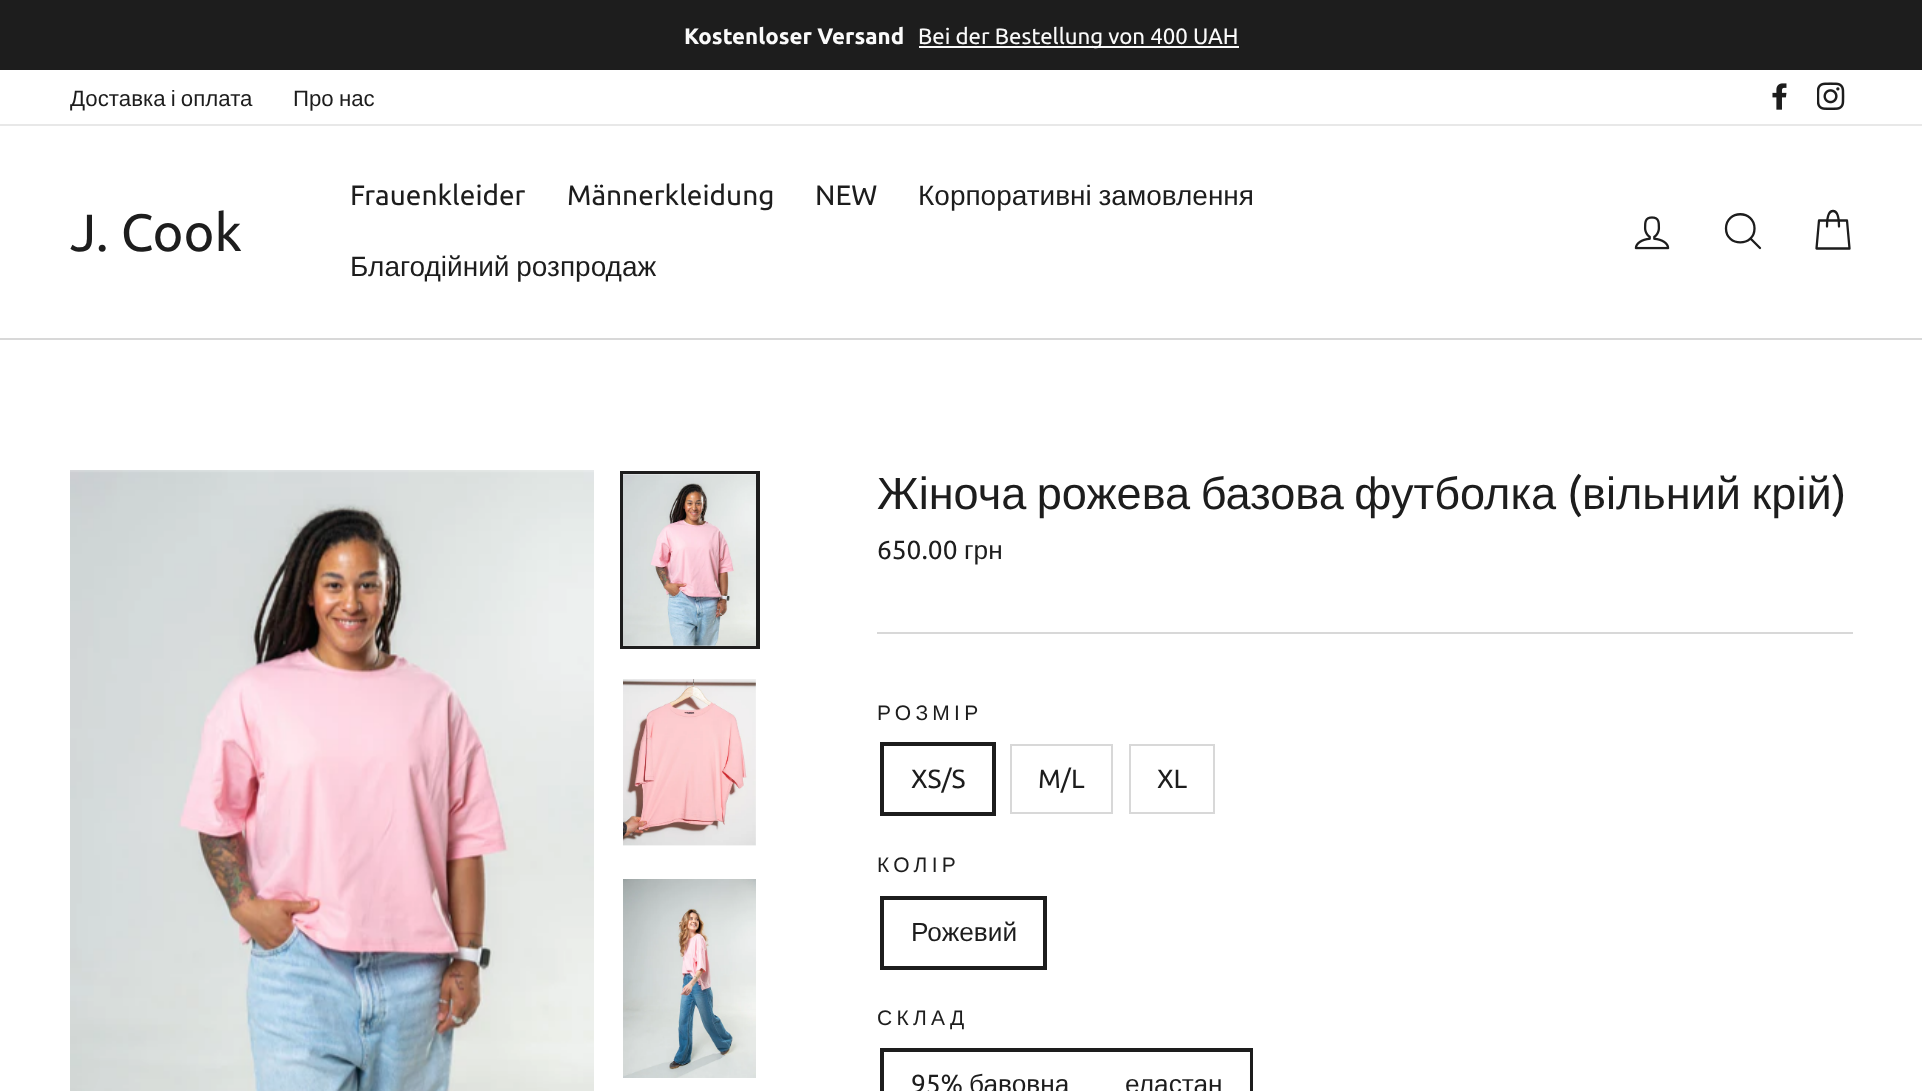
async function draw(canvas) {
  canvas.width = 1922
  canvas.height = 1091
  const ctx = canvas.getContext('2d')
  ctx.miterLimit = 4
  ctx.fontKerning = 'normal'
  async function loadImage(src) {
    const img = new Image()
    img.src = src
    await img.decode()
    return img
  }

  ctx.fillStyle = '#fff'
  ctx.fillRect(0, 0, 1922, 1091)
  ctx.fillStyle = '#1d1d1d'
  ctx.fillRect(0, 0, 1922, 70)
  ctx.font = 'bold 22.25px Ubuntu'
  ctx.fillStyle = '#fafafa'
  ctx.fillText('Kostenloser Versand', 684, 44)
  ctx.fillRect(919, 46, 320, 2)
  ctx.font = '22.25px Ubuntu'
  ctx.fillText('Bei der Bestellung von 400 UAH', 918, 44)
  ctx.wordSpacing = '-1px'
  ctx.font = '22.25px Liberation Sans'
  ctx.fillStyle = '#1d1d1d'
  ctx.fillText('Доставка і оплата', 70, 106)
  ctx.fillText('Про нас', 293, 106)
  ctx.drawImage(await loadImage('image0.png'), 1772, 83, 15, 27)
  ctx.drawImage(await loadImage('image1.png'), 1817, 82, 28, 28)
  ctx.fillStyle = '#e8e8e8'
  ctx.fillRect(0, 124, 1922, 2)
  ctx.fillStyle = '#d8d8d8'
  ctx.fillRect(0, 338, 1922, 2)
  ctx.wordSpacing = '0px'
  ctx.font = '52.5px Ubuntu'
  ctx.fillStyle = '#1d1d1d'
  ctx.fillText('J. Cook', 70, 251)
  ctx.font = '28px Ubuntu'
  ctx.fillText('Frauenkleider', 350, 205)
  ctx.fillText('Männerkleidung', 567, 205)
  ctx.fillText('NEW', 815, 205)
  ctx.wordSpacing = '-1px'
  ctx.font = '28px Liberation Sans'
  ctx.fillText('Корпоративні замовлення', 918, 205)
  ctx.fillText('Благодійний розпродаж', 350, 276)
  ctx.drawImage(await loadImage('image2.png'), 1634, 216, 36, 34)
  ctx.beginPath()
  ctx.moveTo(1754.5, 228.5)
  ctx.bezierCurveTo(1754.5, 247, 1726, 247, 1726, 228.5)
  ctx.bezierCurveTo(1726, 209.5, 1754.5, 209.5, 1754.5, 228.5)
  ctx.closePath()
  ctx.moveTo(1760, 248)
  ctx.lineTo(1750.5, 238.5)
  ctx.strokeStyle = '#1d1d1d'
  ctx.lineWidth = 2.3
  ctx.lineCap = 'round'
  ctx.lineJoin = 'round'
  ctx.stroke()
  ctx.beginPath()
  ctx.moveTo(1827, 226.5)
  ctx.bezierCurveTo(1827, 214.5, 1829.5, 211, 1833, 211)
  ctx.bezierCurveTo(1836.5, 211, 1839, 214.5, 1839, 226.5)
  ctx.moveTo(1819, 220.5)
  ctx.lineTo(1847, 220.5)
  ctx.lineTo(1849.5, 248.5)
  ctx.lineTo(1816.5, 248.5)
  ctx.closePath()
  ctx.stroke()
  ctx.drawImage(await loadImage('image3.png'), 70, 470, 524, 621)
  ctx.lineWidth = 4
  ctx.lineJoin = 'miter'
  ctx.strokeRect(622, 473, 136, 174)
  ctx.fillStyle = '#fefefe'
  ctx.fillRect(623, 474, 133, 172)
  ctx.drawImage(await loadImage('image4.png'), 623, 474, 133, 172)
  ctx.drawImage(await loadImage('image5.png'), 623, 679, 133, 167)
  ctx.drawImage(await loadImage('image6.png'), 623, 879, 133, 199)
  ctx.wordSpacing = '-2px'
  ctx.font = '45.1px Liberation Sans'
  ctx.fillStyle = '#1d1d1d'
  ctx.fillText('Жіноча рожева базова футболка', 877, 509)
  ctx.wordSpacing = '0px'
  ctx.font = '45.1px Ubuntu'
  ctx.fillText('(', 1567, 509)
  ctx.wordSpacing = '-2px'
  ctx.font = '45.1px Liberation Sans'
  ctx.fillText('вільний крій', 1582, 509)
  ctx.wordSpacing = '0px'
  ctx.font = '45.1px Ubuntu'
  ctx.fillText(')', 1832, 509)
  ctx.font = '26.25px Ubuntu'
  ctx.fillText('650.00', 877, 559)
  ctx.font = '26.25px Liberation Sans'
  ctx.fillText('грн', 964, 559)
  ctx.fillStyle = '#d8d8d8'
  ctx.fillRect(877, 632, 976, 2)
  ctx.letterSpacing = '4.25px'
  ctx.font = '21px Liberation Sans'
  ctx.fillStyle = '#1d1d1d'
  ctx.fillText('РОЗМІР', 877, 720)
  ctx.strokeRect(882, 744, 112, 70)
  ctx.letterSpacing = '0px'
  ctx.font = '26.25px Ubuntu'
  ctx.fillText('XS/S', 911, 788)
  ctx.strokeStyle = '#d8d8d8'
  ctx.lineWidth = 2
  ctx.strokeRect(1011, 745, 101, 68)
  ctx.fillText('M/L', 1038, 788)
  ctx.strokeRect(1130, 745, 84, 68)
  ctx.fillText('XL', 1157, 788)
  ctx.letterSpacing = '4.25px'
  ctx.font = '21px Liberation Sans'
  ctx.fillText('КОЛІР', 877, 872)
  ctx.strokeStyle = '#1d1d1d'
  ctx.lineWidth = 4
  ctx.strokeRect(882, 898, 163, 70)
  ctx.letterSpacing = '0px'
  ctx.font = '26.25px Liberation Sans'
  ctx.fillText('Рожевий', 911, 941)
  ctx.letterSpacing = '4.25px'
  ctx.font = '21px Liberation Sans'
  ctx.fillText('СКЛАД', 877, 1025)
  ctx.strokeRect(882, 1050, 369, 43)
  ctx.fillStyle = '#fefefe'
  ctx.fillRect(1249, 1052, 1, 39)
  ctx.letterSpacing = '0px'
  ctx.font = '26.25px Ubuntu'
  ctx.fillStyle = '#1d1d1d'
  ctx.fillText('95%', 911, 1093)
  ctx.font = '26.25px Liberation Sans'
  ctx.fillText('бавовна', 969, 1093)
  ctx.fillText('еластан', 1125, 1093)
}

draw(document.querySelector('canvas'))
